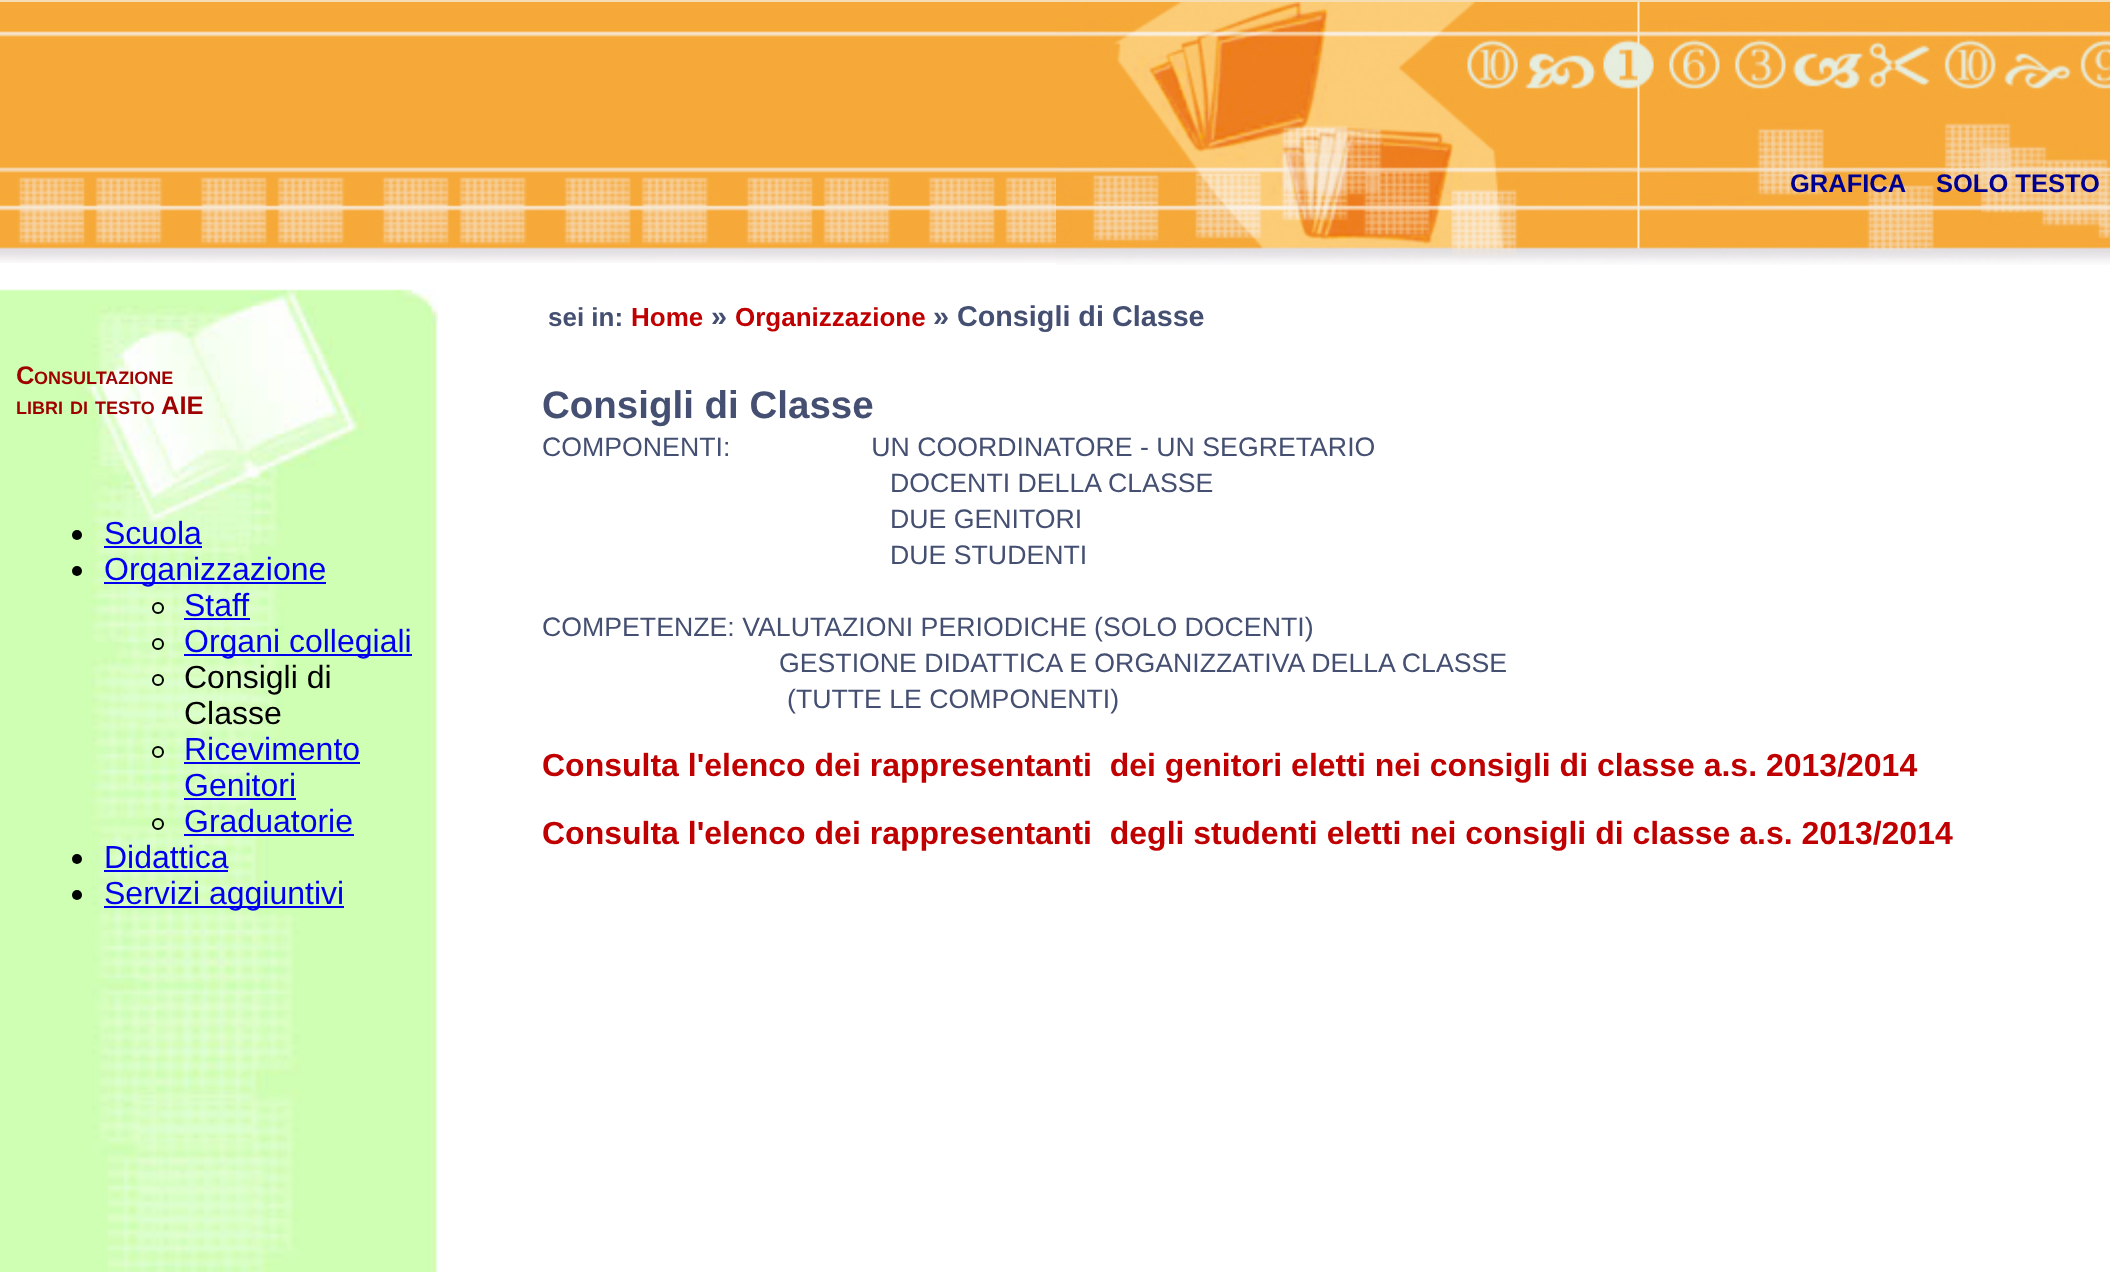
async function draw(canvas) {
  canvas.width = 2110
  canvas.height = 1272
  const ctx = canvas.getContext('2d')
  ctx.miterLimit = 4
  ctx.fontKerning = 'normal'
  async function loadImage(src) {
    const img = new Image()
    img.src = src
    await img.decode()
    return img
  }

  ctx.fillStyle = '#fff'
  ctx.fillRect(0, 0, 2110, 1272)
  ctx.drawImage(await loadImage('image0.png'), 0, 2, 1056, 261)
  ctx.fillStyle = '#f5deb3'
  ctx.fillRect(0, 0, 2110, 2)
  ctx.drawImage(await loadImage('image1.png'), 1056, 2, 1054, 263)
  ctx.font = 'bold 25.5px Liberation Sans'
  ctx.fillStyle = '#000090'
  ctx.fillText('GRAFICA', 1790, 192)
  ctx.fillText('SOLO TESTO', 1936, 192)
  ctx.drawImage(await loadImage('image2.png'), 0, 289, 438, 983)
  ctx.fillStyle = '#9f0000'
  ctx.fillText('C', 16, 384)
  ctx.font = 'bold 18px Liberation Sans'
  ctx.fillText('ONSULTAZIONE', 34, 384)
  ctx.fillText('LIBRI', 16, 414)
  ctx.fillText('DI', 70, 414)
  ctx.fillText('TESTO', 95, 414)
  ctx.font = 'bold 25.5px Liberation Sans'
  ctx.fillText('AIE', 161, 414)
  ctx.fillStyle = '#000'
  ctx.beginPath()
  ctx.arc(77, 535, 5, 0, 2 * Math.PI)
  ctx.fill()
  ctx.font = '32px Liberation Sans'
  ctx.fillStyle = '#00e'
  ctx.fillText('Scuola', 104, 544)
  ctx.fillRect(104, 546, 98, 2)
  ctx.fillStyle = '#000'
  ctx.beginPath()
  ctx.arc(77, 571, 5, 0, 2 * Math.PI)
  ctx.fill()
  ctx.fillStyle = '#00e'
  ctx.fillRect(104, 582, 222, 2)
  ctx.fillText('Organizzazione', 104, 580)
  ctx.beginPath()
  ctx.arc(158, 608, 5, 0, 2 * Math.PI)
  ctx.strokeStyle = '#000'
  ctx.lineWidth = 2
  ctx.stroke()
  ctx.fillText('Staff', 184, 616)
  ctx.fillRect(184, 618, 66, 2)
  ctx.beginPath()
  ctx.arc(158, 644, 5, 0, 2 * Math.PI)
  ctx.stroke()
  ctx.fillRect(184, 654, 228, 2)
  ctx.fillText('Organi collegiali', 184, 652)
  ctx.beginPath()
  ctx.arc(158, 680, 5, 0, 2 * Math.PI)
  ctx.stroke()
  ctx.fillStyle = '#000'
  ctx.fillText('Consigli di', 184, 688)
  ctx.fillText('Classe', 184, 724)
  ctx.beginPath()
  ctx.arc(158, 752, 5, 0, 2 * Math.PI)
  ctx.stroke()
  ctx.fillStyle = '#00e'
  ctx.fillText('Ricevimento', 184, 760)
  ctx.fillRect(184, 762, 176, 2)
  ctx.fillText('Genitori', 184, 796)
  ctx.fillRect(184, 798, 112, 2)
  ctx.beginPath()
  ctx.arc(158, 824, 5, 0, 2 * Math.PI)
  ctx.stroke()
  ctx.fillText('Graduatorie', 184, 832)
  ctx.fillRect(184, 834, 170, 2)
  ctx.fillStyle = '#000'
  ctx.beginPath()
  ctx.arc(77, 859, 5, 0, 2 * Math.PI)
  ctx.fill()
  ctx.fillStyle = '#00e'
  ctx.fillText('Didattica', 104, 868)
  ctx.fillRect(104, 870, 124, 2)
  ctx.fillStyle = '#000'
  ctx.beginPath()
  ctx.arc(77, 895, 5, 0, 2 * Math.PI)
  ctx.fill()
  ctx.fillStyle = '#00e'
  ctx.fillRect(104, 906, 240, 2)
  ctx.fillText('Servizi aggiuntivi', 104, 904)
  ctx.font = 'bold 26px Liberation Sans'
  ctx.fillStyle = '#444f71'
  ctx.fillText('sei in:', 548, 326)
  ctx.fillStyle = '#c00000'
  ctx.fillText('Home', 631, 326)
  ctx.font = 'bold 28.75px Liberation Sans'
  ctx.fillStyle = '#444f71'
  ctx.fillText('»', 711, 326)
  ctx.font = 'bold 26px Liberation Sans'
  ctx.fillStyle = '#c00000'
  ctx.fillText('Organizzazione', 735, 326)
  ctx.font = 'bold 28.75px Liberation Sans'
  ctx.fillStyle = '#444f71'
  ctx.fillText('» Consigli di Classe', 933, 326)
  ctx.font = 'bold 38.5px Liberation Sans'
  ctx.fillText('Consigli di Classe', 542, 418)
  ctx.font = '26.7px Liberation Sans'
  ctx.fillText('COMPONENTI:                   UN COORDINATORE - UN SEGRETARIO', 542, 456)
  ctx.fillText('DOCENTI DELLA CLASSE', 890, 492)
  ctx.fillText('DUE GENITORI', 890, 528)
  ctx.fillText('DUE STUDENTI', 890, 564)
  ctx.fillText('COMPETENZE: VALUTAZIONI PERIODICHE (SOLO DOCENTI)', 542, 636)
  ctx.fillText('GESTIONE DIDATTICA E ORGANIZZATIVA DELLA CLASSE', 779, 672)
  ctx.fillText('(TUTTE LE COMPONENTI)', 787, 708)
  ctx.font = 'bold 32px Liberation Sans'
  ctx.fillStyle = '#c00000'
  ctx.fillText('Consulta l\'elenco dei rappresentanti  dei genitori eletti nei consigli di classe a.s. 2013/2014', 542, 776)
  ctx.fillText('Consulta l\'elenco dei rappresentanti  degli studenti eletti nei consigli di classe a.s. 2013/2014', 542, 844)
}

draw(document.querySelector('canvas'))
